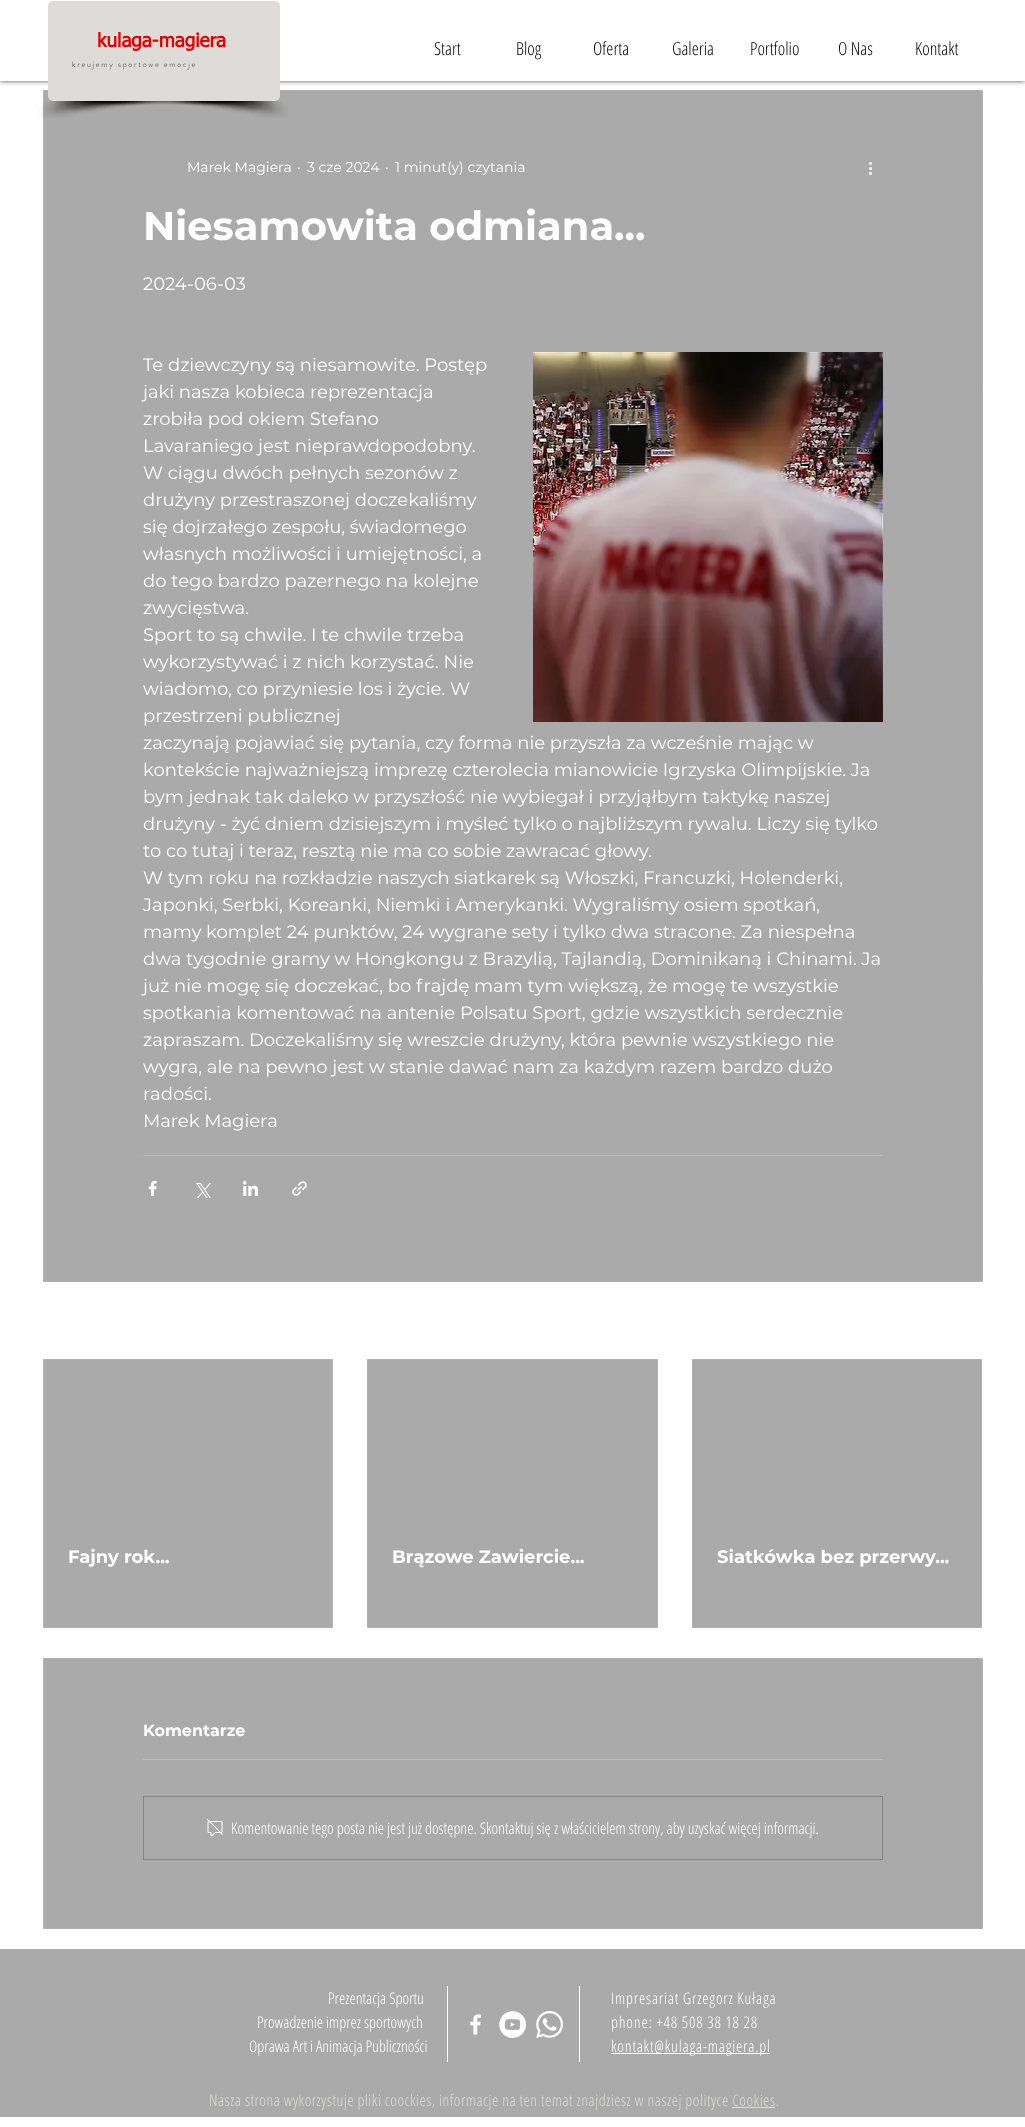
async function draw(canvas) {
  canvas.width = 1025
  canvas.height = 2127
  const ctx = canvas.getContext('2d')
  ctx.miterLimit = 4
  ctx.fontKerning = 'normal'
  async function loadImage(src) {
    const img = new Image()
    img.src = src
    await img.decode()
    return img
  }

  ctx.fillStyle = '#fff'
  ctx.fillRect(0, 0, 1025, 2127)
  ctx.fillStyle = '#000000b3'
  ctx.filter = 'blur(2.5px)'
  ctx.beginPath()
  ctx.rect(0, 0, 1025, 81)
  ctx.fill()
  ctx.filter = 'none'
  ctx.fillStyle = '#fff'
  ctx.fillRect(0, 0, 1025, 81)
  ctx.fillStyle = '#aaa'
  ctx.beginPath()
  ctx.rect(43.5, 90.5, 939, 1191)
  ctx.fill()
  ctx.strokeStyle = '#b1b0ae'
  ctx.stroke()
  ctx.fillStyle = '#dddcd9'
  ctx.beginPath()
  ctx.roundRect(48, 1, 232, 100, 5)
  ctx.fill()
  ctx.font = 'bold 19px tahoma'
  ctx.fillStyle = '#e80000'
  ctx.fillText('kulaga-magiera', 97, 47)
  ctx.font = '300 8px "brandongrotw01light"'
  ctx.fillStyle = '#2c2c2b'
  ctx.fillText('k r e u j e m y   s p o r t o w e   e m o c j e', 72, 67)
  ctx.drawImage(await loadImage('image0.png'), 39, 101, 149, 17)
  ctx.drawImage(await loadImage('image1.png'), 148, 101, 140, 17)
  ctx.font = '300 18px Open Sans Condensed'
  ctx.fillStyle = '#000'
  ctx.fillText('Start', 434, 55)
  ctx.fillText('Blog', 516, 55)
  ctx.fillText('Oferta', 593, 55)
  ctx.fillText('Galeria', 672, 55)
  ctx.fillText('Portfolio', 750, 55)
  ctx.fillText('O Nas', 838, 55)
  ctx.fillText('Kontakt', 915, 55)
  ctx.font = '14px Montserrat'
  ctx.fillStyle = '#fff'
  ctx.fillText('Marek Magiera', 187, 172)
  ctx.fillText('·', 297, 172)
  ctx.fillText('3 cze 2024', 307, 172)
  ctx.fillText('·', 385, 172)
  ctx.fillText('1 minut(y) czytania', 395, 172)
  ctx.drawImage(await loadImage('image2.png'), 869, 162, 3, 13)
  ctx.font = 'bold 40px Montserrat'
  ctx.fillText('Niesamowita odmiana...', 143, 240)
  ctx.font = '18px Montserrat'
  ctx.fillText('2024-06-03', 143, 290)
  ctx.fillText('Te dziewczyny są niesamowite. Postęp', 143, 371)
  ctx.fillText('jaki nasza kobieca reprezentacja', 143, 398)
  ctx.fillText('zrobiła pod okiem Stefano', 143, 425)
  ctx.fillText('Lavaraniego jest nieprawdopodobny.', 143, 452)
  ctx.fillText('W ciągu dwóch pełnych sezonów z', 143, 479)
  ctx.fillText('drużyny przestraszonej doczekaliśmy', 143, 506)
  ctx.fillText('się dojrzałego zespołu, świadomego', 143, 533)
  ctx.fillText('własnych możliwości i umiejętności, a', 143, 560)
  ctx.fillText('do tego bardzo pazernego na kolejne', 143, 587)
  ctx.fillText('zwycięstwa.', 143, 614)
  ctx.drawImage(await loadImage('image3.png'), 533, 352, 350, 370)
  ctx.fillText('Sport to są chwile. I te chwile trzeba', 143, 641)
  ctx.fillText('wykorzystywać i z nich korzystać. Nie', 143, 668)
  ctx.fillText('wiadomo, co przyniesie los i życie. W', 143, 695)
  ctx.fillText('przestrzeni publicznej', 143, 722)
  ctx.fillText('zaczynają pojawiać się pytania, czy forma nie przyszła za wcześnie mając w', 143, 749)
  ctx.fillText('kontekście najważniejszą imprezę czterolecia mianowicie Igrzyska Olimpijskie. Ja', 143, 776)
  ctx.fillText('bym jednak tak daleko w przyszłość nie wybiegał i przyjąłbym taktykę naszej', 143, 803)
  ctx.fillText('drużyny - żyć dniem dzisiejszym i myśleć tylko o najbliższym rywalu. Liczy się tylko', 143, 830)
  ctx.fillText('to co tutaj i teraz, resztą nie ma co sobie zawracać głowy.', 143, 857)
  ctx.fillText('W tym roku na rozkładzie naszych siatkarek są Włoszki, Francuzki, Holenderki,', 143, 884)
  ctx.fillText('Japonki, Serbki, Koreanki, Niemki i Amerykanki. Wygraliśmy osiem spotkań,', 143, 911)
  ctx.fillText('mamy komplet 24 punktów, 24 wygrane sety i tylko dwa stracone. Za niespełna', 143, 938)
  ctx.fillText('dwa tygodnie gramy w Hongkongu z Brazylią, Tajlandią, Dominikaną i Chinami. Ja', 143, 965)
  ctx.fillText('już nie mogę się doczekać, bo frajdę mam tym większą, że mogę te wszystkie', 143, 992)
  ctx.fillText('spotkania komentować na antenie Polsatu Sport, gdzie wszystkich serdecznie', 143, 1019)
  ctx.fillText('zapraszam. Doczekaliśmy się wreszcie drużyny, która pewnie wszystkiego nie', 143, 1046)
  ctx.fillText('wygra, ale na pewno jest w stanie dawać nam za każdym razem bardzo dużo', 143, 1073)
  ctx.fillText('radości.', 143, 1100)
  ctx.fillText('Marek Magiera', 143, 1127)
  ctx.fillStyle = '#bbb'
  ctx.fillRect(143, 1155, 740, 1)
  ctx.drawImage(await loadImage('image4.png'), 148, 1181, 9, 15)
  ctx.drawImage(await loadImage('image5.png'), 196, 1183, 15, 15)
  ctx.drawImage(await loadImage('image6.png'), 243, 1181, 15, 15)
  ctx.drawImage(await loadImage('image7.png'), 292, 1181, 15, 15)
  ctx.fillStyle = '#aaa'
  ctx.beginPath()
  ctx.rect(43.5, 1359.5, 289, 268)
  ctx.fill()
  ctx.stroke()
  ctx.font = 'bold 18px Montserrat'
  ctx.fillStyle = '#fff'
  ctx.fillText('Fajny rok...', 68, 1563)
  ctx.fillStyle = '#aaa'
  ctx.beginPath()
  ctx.rect(367.5, 1359.5, 290, 268)
  ctx.fill()
  ctx.stroke()
  ctx.fillStyle = '#fff'
  ctx.fillText('Brązowe Zawiercie...', 392, 1563)
  ctx.fillStyle = '#aaa'
  ctx.beginPath()
  ctx.rect(692.5, 1359.5, 289, 268)
  ctx.fill()
  ctx.stroke()
  ctx.fillStyle = '#fff'
  ctx.fillText('Siatkówka bez przerwy...', 717, 1563)
  ctx.fillStyle = '#aaa'
  ctx.beginPath()
  ctx.rect(43.5, 1658.5, 939, 270)
  ctx.fill()
  ctx.stroke()
  ctx.font = 'bold 16px Montserrat'
  ctx.fillStyle = '#fff'
  ctx.fillText('Komentarze', 143, 1736)
  ctx.fillStyle = '#bbb'
  ctx.fillRect(143, 1759, 740, 1)
  ctx.strokeStyle = '#848484'
  ctx.strokeRect(143.5, 1796.5, 739, 63)
  ctx.drawImage(await loadImage('image8.png'), 207, 1819, 16, 18)
  ctx.font = '300 16px Open Sans Condensed'
  ctx.fillStyle = '#fff'
  ctx.fillText('Komentowanie tego posta nie jest już dostępne. Skontaktuj się z właścicielem strony, aby uzyskać więcej informacji.', 231, 1834)
  ctx.fillStyle = '#aaa'
  ctx.fillRect(0, 1949, 1025, 168)
  ctx.fillStyle = '#fff'
  ctx.fillText('Prezentacja Sportu', 328, 2004)
  ctx.fillText('Prowadzenie imprez sportowych', 257, 2028)
  ctx.fillText('Oprawa Art i Animacja Publiczności', 249, 2052)
  ctx.fillRect(447, 1986, 1, 76)
  ctx.drawImage(await loadImage('image9.png'), 470, 2014, 11, 21)
  ctx.drawImage(await loadImage('image10.png'), 499, 2011, 27, 27)
  ctx.drawImage(await loadImage('image11.png'), 536, 2011, 27, 27)
  ctx.fillRect(579, 1986, 1, 76)
  ctx.letterSpacing = '0.8px'
  ctx.fillText('Impresariat Grzegorz Kułaga', 611, 2004)
  ctx.fillText('phone: +48 508 38 18 28', 611, 2028)
  ctx.fillRect(611, 2053, 159, 1)
  ctx.fillText('kontakt@kulaga-magiera.pl', 611, 2052)
  ctx.letterSpacing = '0.48px'
  ctx.fillStyle = '#dddcd9'
  ctx.fillText('Nasza strona wykorzystuje pliki coockies, informacje na ten temat znajdziesz w naszej polityce Cookies.', 209, 2106)
  ctx.fillRect(732, 2107, 43, 1)
}

draw(document.querySelector('canvas'))
